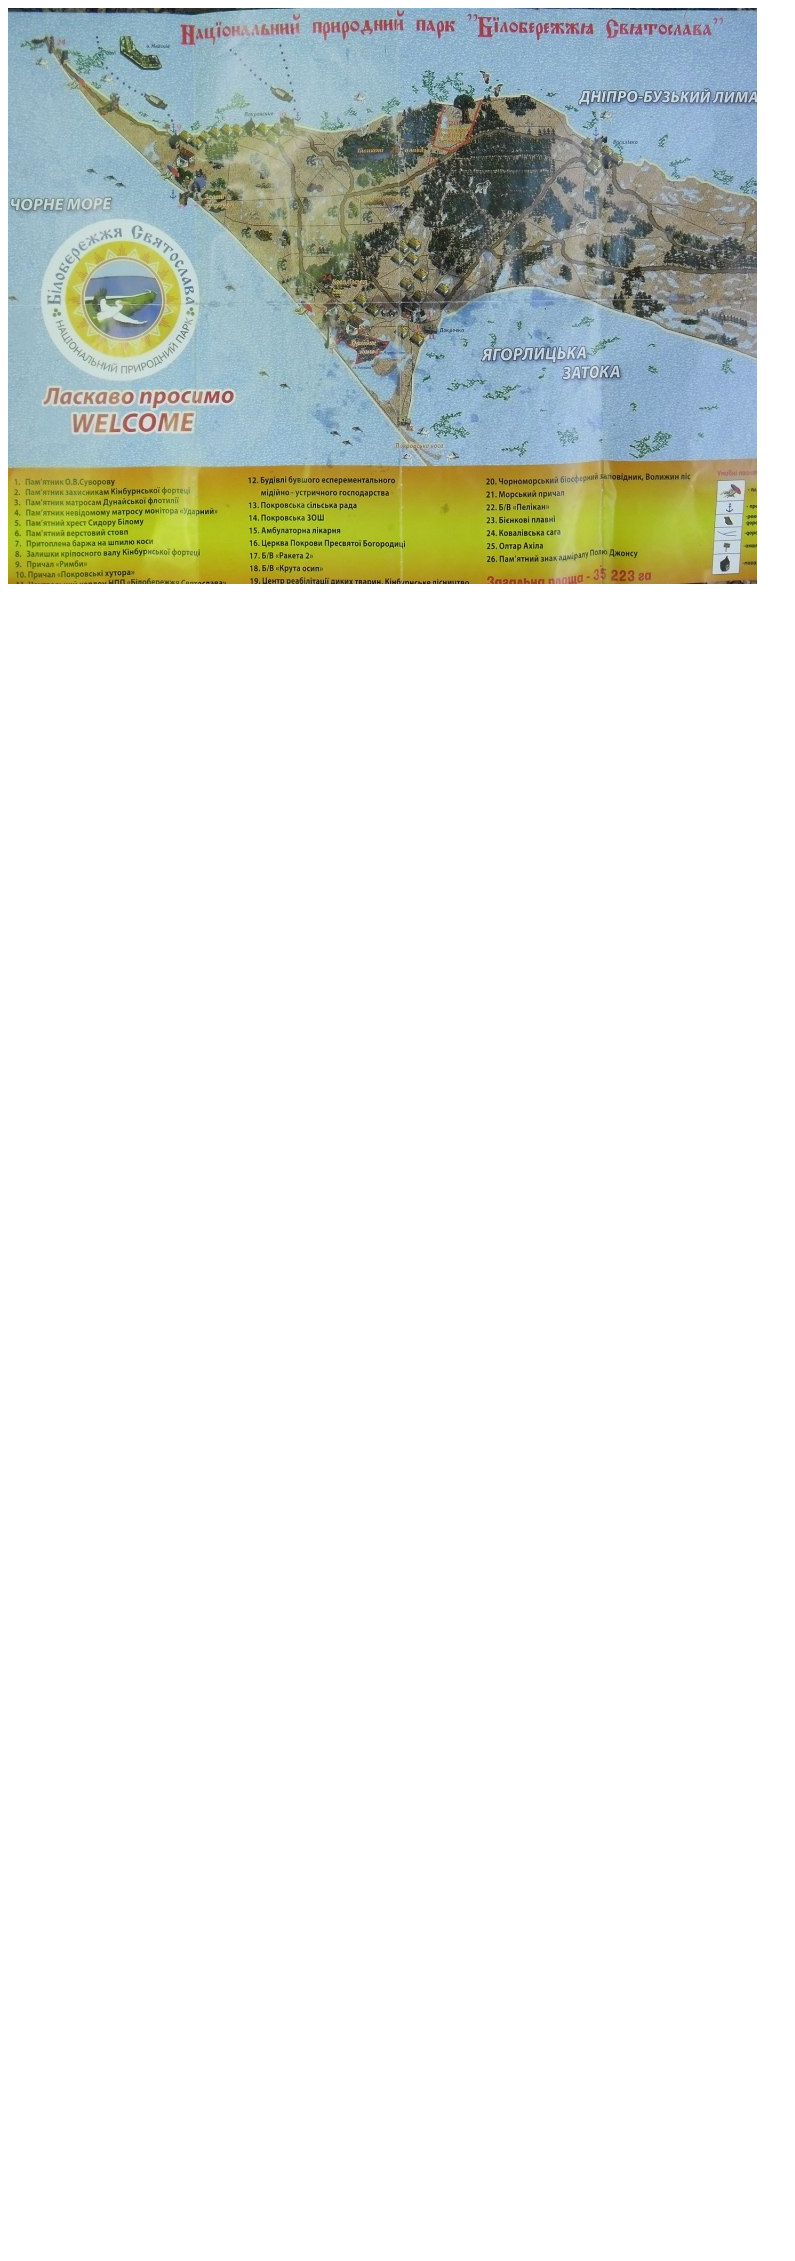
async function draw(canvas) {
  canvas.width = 795
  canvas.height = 2261
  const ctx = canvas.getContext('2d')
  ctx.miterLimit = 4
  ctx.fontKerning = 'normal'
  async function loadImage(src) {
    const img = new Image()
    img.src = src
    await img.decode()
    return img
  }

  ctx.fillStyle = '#fff'
  ctx.fillRect(0, 0, 795, 2261)
  ctx.drawImage(await loadImage('image0.png'), 8, 8, 749, 576)
}

draw(document.querySelector('canvas'))
